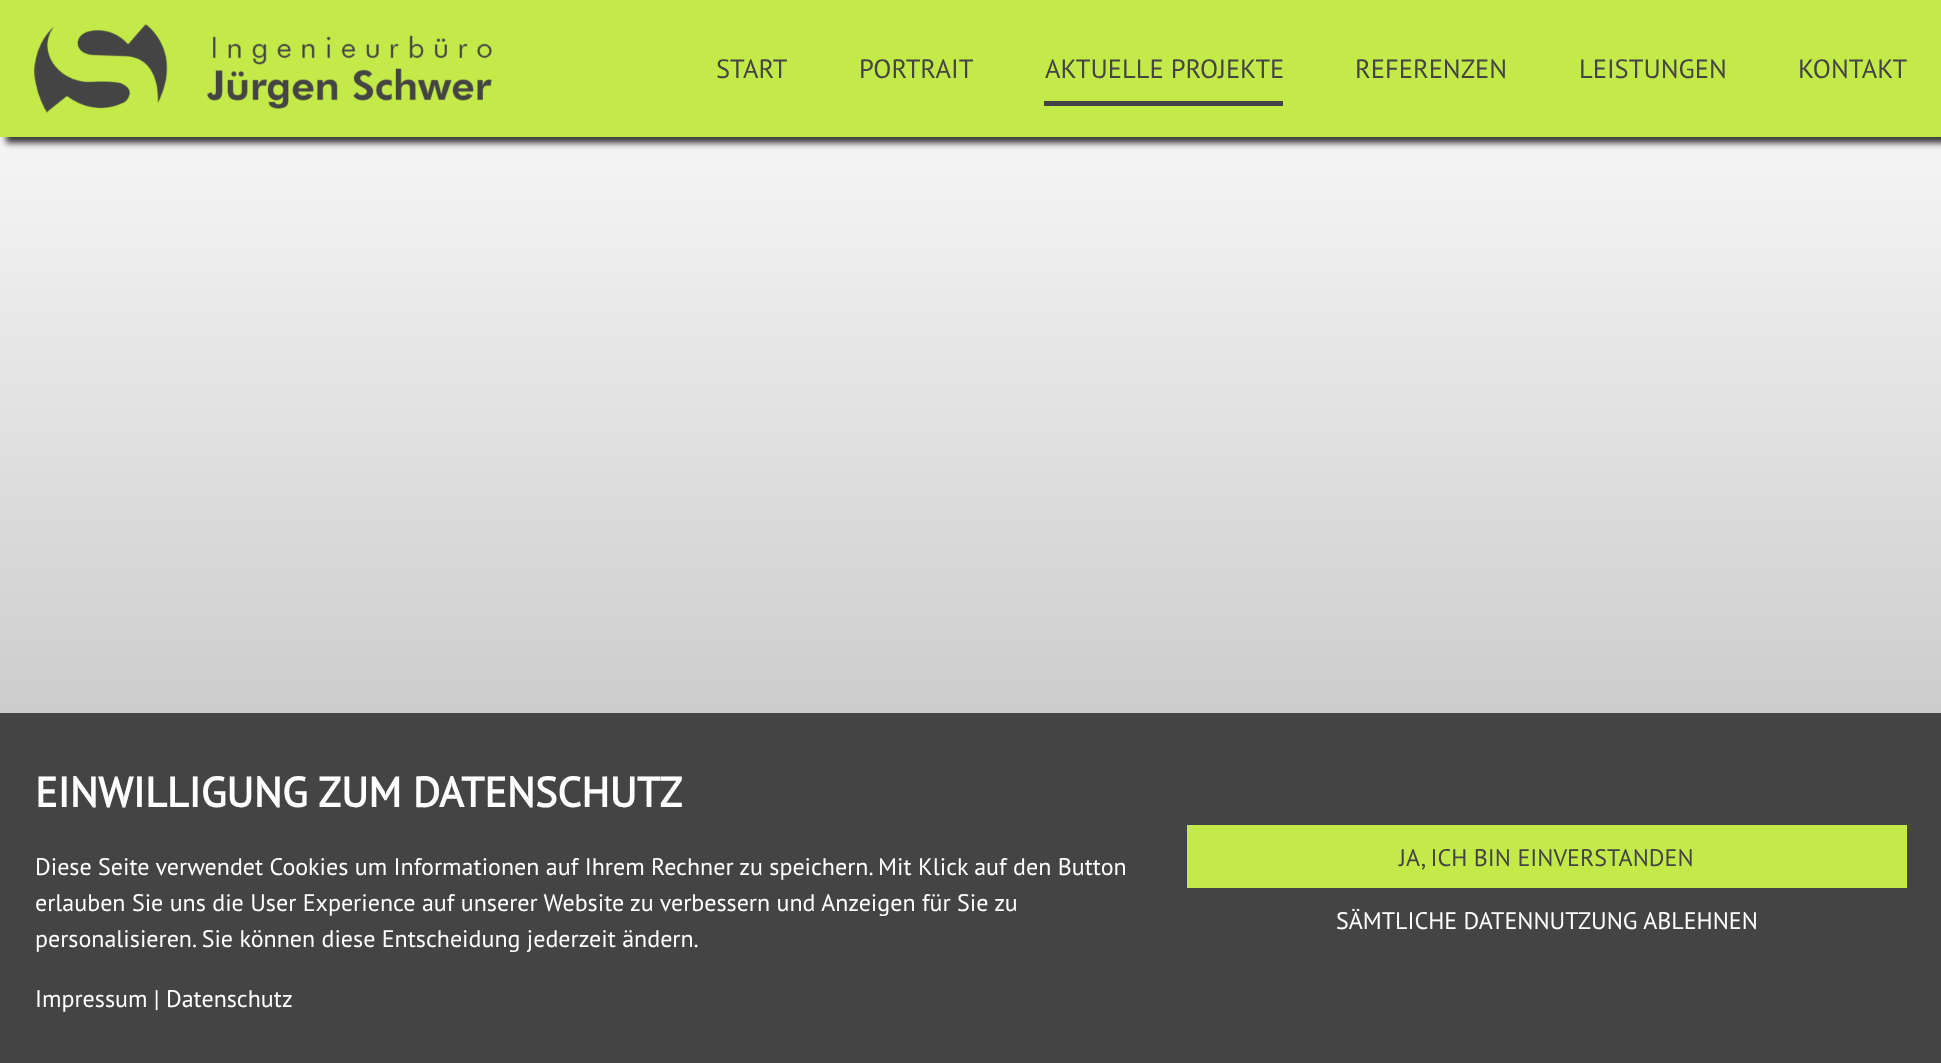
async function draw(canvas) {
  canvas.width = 1941
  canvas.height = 1063
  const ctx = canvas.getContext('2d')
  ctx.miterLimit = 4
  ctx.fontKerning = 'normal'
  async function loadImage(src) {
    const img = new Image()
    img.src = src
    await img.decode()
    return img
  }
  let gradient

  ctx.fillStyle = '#fff'
  ctx.fillRect(0, 0, 1941, 1063)
  gradient = ctx.createLinearGradient(971, 1050, 971, 0)
  gradient.addColorStop(0, '#b5b5b5')
  gradient.addColorStop(1, '#fff')
  ctx.fillStyle = gradient
  ctx.fillRect(0, 137, 1941, 576)
  ctx.fillStyle = '#393838'
  ctx.filter = 'blur(3px)'
  ctx.beginPath()
  ctx.rect(6, 6, 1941, 137)
  ctx.fill()
  ctx.filter = 'none'
  ctx.fillStyle = '#c4ea49'
  ctx.fillRect(0, 0, 1941, 137)
  ctx.drawImage(await loadImage('image0.png'), 34, 24, 458, 89)
  ctx.font = '26.5px PT Sans'
  ctx.fillStyle = '#444'
  ctx.fillText('START', 716, 78)
  ctx.fillText('PORTRAIT', 859, 78)
  ctx.fillText('AKTUELLE PROJEKTE', 1045, 78)
  ctx.fillRect(1044, 101, 239, 5)
  ctx.fillText('REFERENZEN', 1355, 78)
  ctx.fillText('LEISTUNGEN', 1579, 78)
  ctx.fillText('KONTAKT', 1798, 78)
  ctx.fillRect(0, 713, 1941, 350)
  ctx.font = 'bold 42px PT Sans'
  ctx.fillStyle = '#fff'
  ctx.fillText('EINWILLIGUNG ZUM DATENSCHUTZ', 35, 807)
  ctx.font = '24px PT Sans'
  ctx.fillText('Diese Seite verwendet Cookies um Informationen auf Ihrem Rechner zu speichern. Mit Klick auf den Button', 35, 875)
  ctx.fillText('erlauben Sie uns die User Experience auf unserer Website zu verbessern und Anzeigen für Sie zu', 35, 911)
  ctx.fillText('personalisieren. Sie können diese Entscheidung jederzeit ändern.', 35, 947)
  ctx.fillText('Impressum | Datenschutz', 35, 1007)
  ctx.fillStyle = '#c4ea49'
  ctx.fillRect(1187, 825, 720, 63)
  ctx.fillStyle = '#444'
  ctx.fillText('JA, ICH BIN EINVERSTANDEN', 1399, 866)
  ctx.fillStyle = '#fff'
  ctx.fillText('SÄMTLICHE DATENNUTZUNG ABLEHNEN', 1336, 929)
}

draw(document.querySelector('canvas'))
